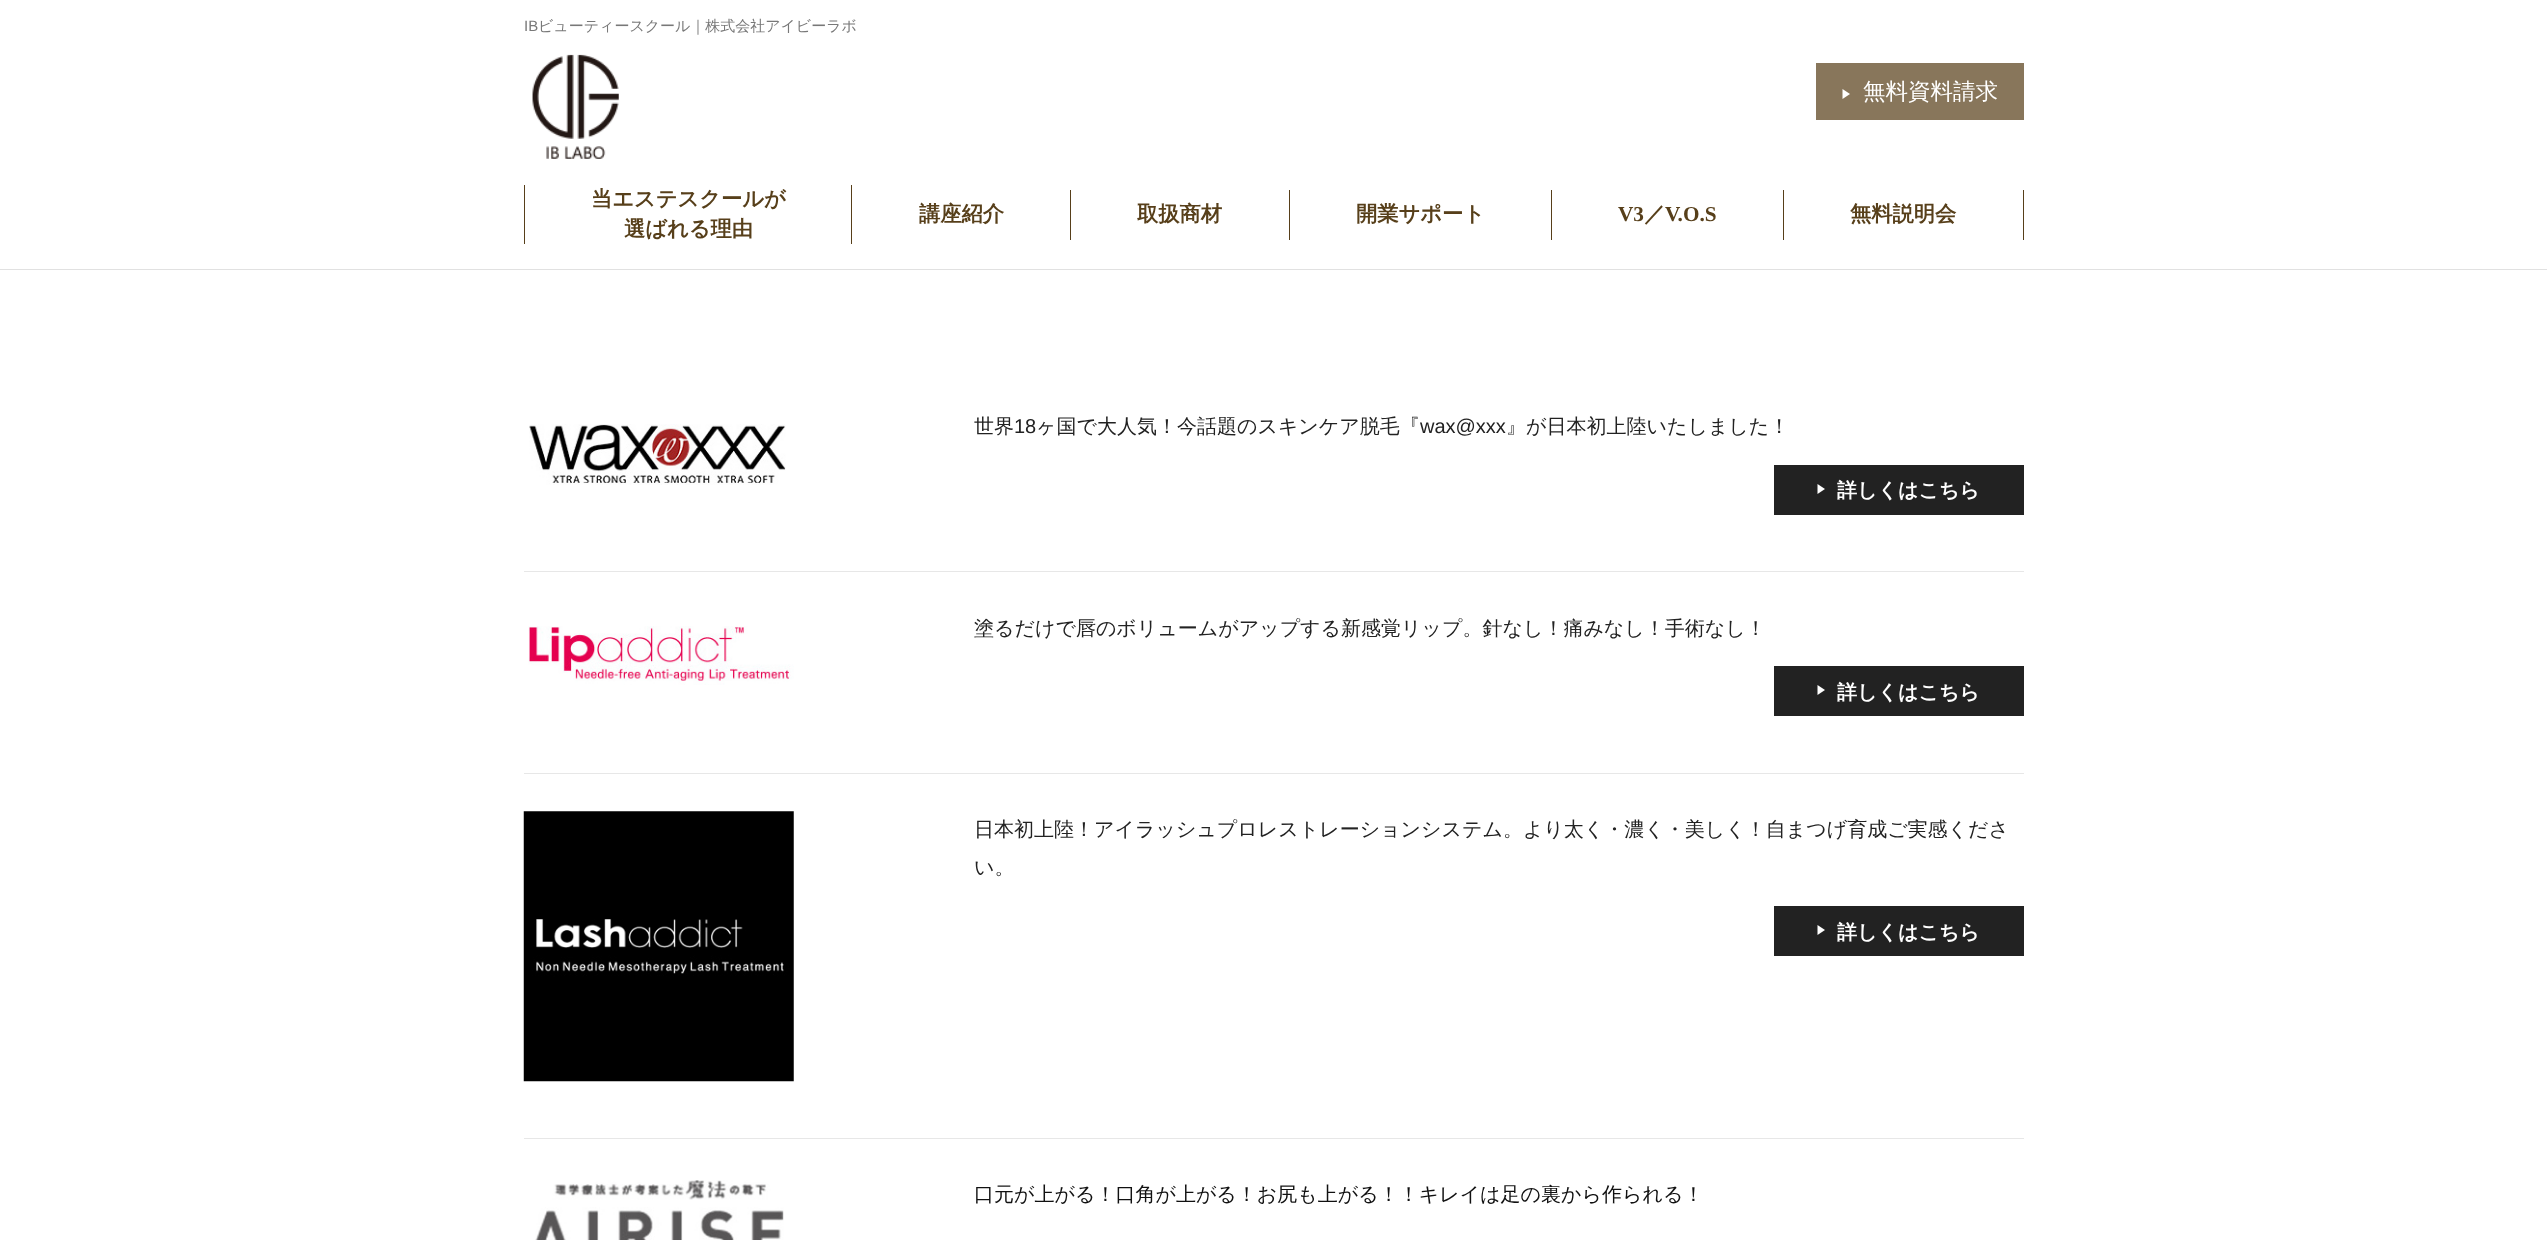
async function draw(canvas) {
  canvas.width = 2547
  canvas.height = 1240
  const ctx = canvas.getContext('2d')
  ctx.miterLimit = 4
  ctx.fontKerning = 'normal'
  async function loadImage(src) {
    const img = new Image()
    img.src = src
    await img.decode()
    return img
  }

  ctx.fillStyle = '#fff'
  ctx.fillRect(0, 0, 2547, 1240)
  ctx.fillStyle = '#e1e1e1'
  ctx.fillRect(0, 269, 2547, 1)
  ctx.font = '15px Liberation Sans'
  ctx.fillStyle = '#787878'
  ctx.fillText('IB', 524, 31)
  ctx.font = '500 15px WenQuanYi Zen Hei'
  ctx.fillText('ビューティースクール｜株式会社アイビーラボ', 538, 31)
  ctx.drawImage(await loadImage('image0.png'), 532, 54, 87, 105)
  ctx.fillStyle = '#88765b'
  ctx.fillRect(1816, 63, 208, 57)
  ctx.fillStyle = '#fff'
  ctx.beginPath()
  ctx.moveTo(1842.5, 99)
  ctx.lineTo(1842.5, 89)
  ctx.lineTo(1850, 94)
  ctx.closePath()
  ctx.fill()
  ctx.font = '500 22.5px WenQuanYi Zen Hei'
  ctx.fillText('無料資料請求', 1863, 99)
  ctx.fillStyle = '#573f1a'
  ctx.fillRect(851, 185, 1, 59)
  ctx.fillRect(524, 185, 1, 59)
  ctx.font = 'bold 21.25px WenQuanYi Zen Hei'
  ctx.fillText('当エステスクールが', 591, 206)
  ctx.fillText('選ばれる理由', 624, 236)
  ctx.fillRect(1070, 190, 1, 50)
  ctx.fillText('講座紹介', 919, 221)
  ctx.fillRect(1289, 190, 1, 50)
  ctx.fillText('取扱商材', 1137, 221)
  ctx.fillRect(1551, 190, 1, 50)
  ctx.fillText('開業サポート', 1356, 221)
  ctx.fillRect(1783, 190, 1, 50)
  ctx.font = 'bold 21.25px Liberation Serif'
  ctx.fillText('V3', 1618, 221)
  ctx.font = 'bold 21.25px WenQuanYi Zen Hei'
  ctx.fillText('／', 1644, 221)
  ctx.font = 'bold 21.25px Liberation Serif'
  ctx.fillText('V.O.S', 1665, 221)
  ctx.fillRect(2023, 190, 1, 50)
  ctx.font = 'bold 21.25px WenQuanYi Zen Hei'
  ctx.fillText('無料説明会', 1850, 221)
  ctx.fillStyle = '#e7e7e7'
  ctx.fillRect(524, 571, 1500, 1)
  ctx.drawImage(await loadImage('image1.png'), 529, 424, 257, 61)
  ctx.font = '500 20px WenQuanYi Zen Hei'
  ctx.fillStyle = '#222'
  ctx.fillText('世界', 974, 433)
  ctx.font = '20px Liberation Sans'
  ctx.fillText('18', 1014, 433)
  ctx.font = '500 20px WenQuanYi Zen Hei'
  ctx.fillText('ヶ国で大人気！今話題のスキンケア脱毛『', 1036, 433)
  ctx.font = '20px Liberation Sans'
  ctx.fillText('wax@xxx', 1420, 433)
  ctx.font = '500 20px WenQuanYi Zen Hei'
  ctx.fillText('』が日本初上陸いたしました！', 1506, 433)
  ctx.fillRect(1774, 465, 250, 50)
  ctx.fillStyle = '#fff'
  ctx.beginPath()
  ctx.moveTo(1817.5, 494)
  ctx.lineTo(1817.5, 484)
  ctx.lineTo(1825, 489)
  ctx.closePath()
  ctx.fill()
  ctx.font = 'bold 20px WenQuanYi Zen Hei'
  ctx.fillText('詳しくはこちら', 1837, 497)
  ctx.fillStyle = '#e7e7e7'
  ctx.fillRect(524, 773, 1500, 1)
  ctx.drawImage(await loadImage('image2.png'), 528, 626, 266, 59)
  ctx.font = '500 20px WenQuanYi Zen Hei'
  ctx.fillStyle = '#222'
  ctx.fillText('塗るだけで唇のボリュームがアップする新感覚リップ。針なし！痛みなし！手術なし！', 974, 635)
  ctx.fillRect(1774, 666, 250, 50)
  ctx.fillStyle = '#fff'
  ctx.beginPath()
  ctx.moveTo(1817.5, 695)
  ctx.lineTo(1817.5, 685)
  ctx.lineTo(1825, 690)
  ctx.closePath()
  ctx.fill()
  ctx.font = 'bold 20px WenQuanYi Zen Hei'
  ctx.fillText('詳しくはこちら', 1837, 699)
  ctx.fillStyle = '#e7e7e7'
  ctx.fillRect(524, 1138, 1500, 1)
  ctx.drawImage(await loadImage('image3.png'), 523, 811, 271, 271)
  ctx.font = '500 20px WenQuanYi Zen Hei'
  ctx.fillStyle = '#222'
  ctx.fillText('日本初上陸！アイラッシュプロレストレーションシステム。より太く・濃く・美しく！自まつげ育成ご実感くださ', 974, 836)
  ctx.fillText('い。', 974, 874)
  ctx.fillRect(1774, 906, 250, 50)
  ctx.fillStyle = '#fff'
  ctx.beginPath()
  ctx.moveTo(1817.5, 935)
  ctx.lineTo(1817.5, 925)
  ctx.lineTo(1825, 930)
  ctx.closePath()
  ctx.fill()
  ctx.font = 'bold 20px WenQuanYi Zen Hei'
  ctx.fillText('詳しくはこちら', 1837, 939)
  ctx.drawImage(await loadImage('image4.png'), 535, 1180, 249, 60)
  ctx.font = '500 20px WenQuanYi Zen Hei'
  ctx.fillStyle = '#111'
  ctx.fillText('口元が上がる！口角が上がる！お尻も上がる！！キレイは足の裏から作られる！', 974, 1201)
}

draw(document.querySelector('canvas'))
